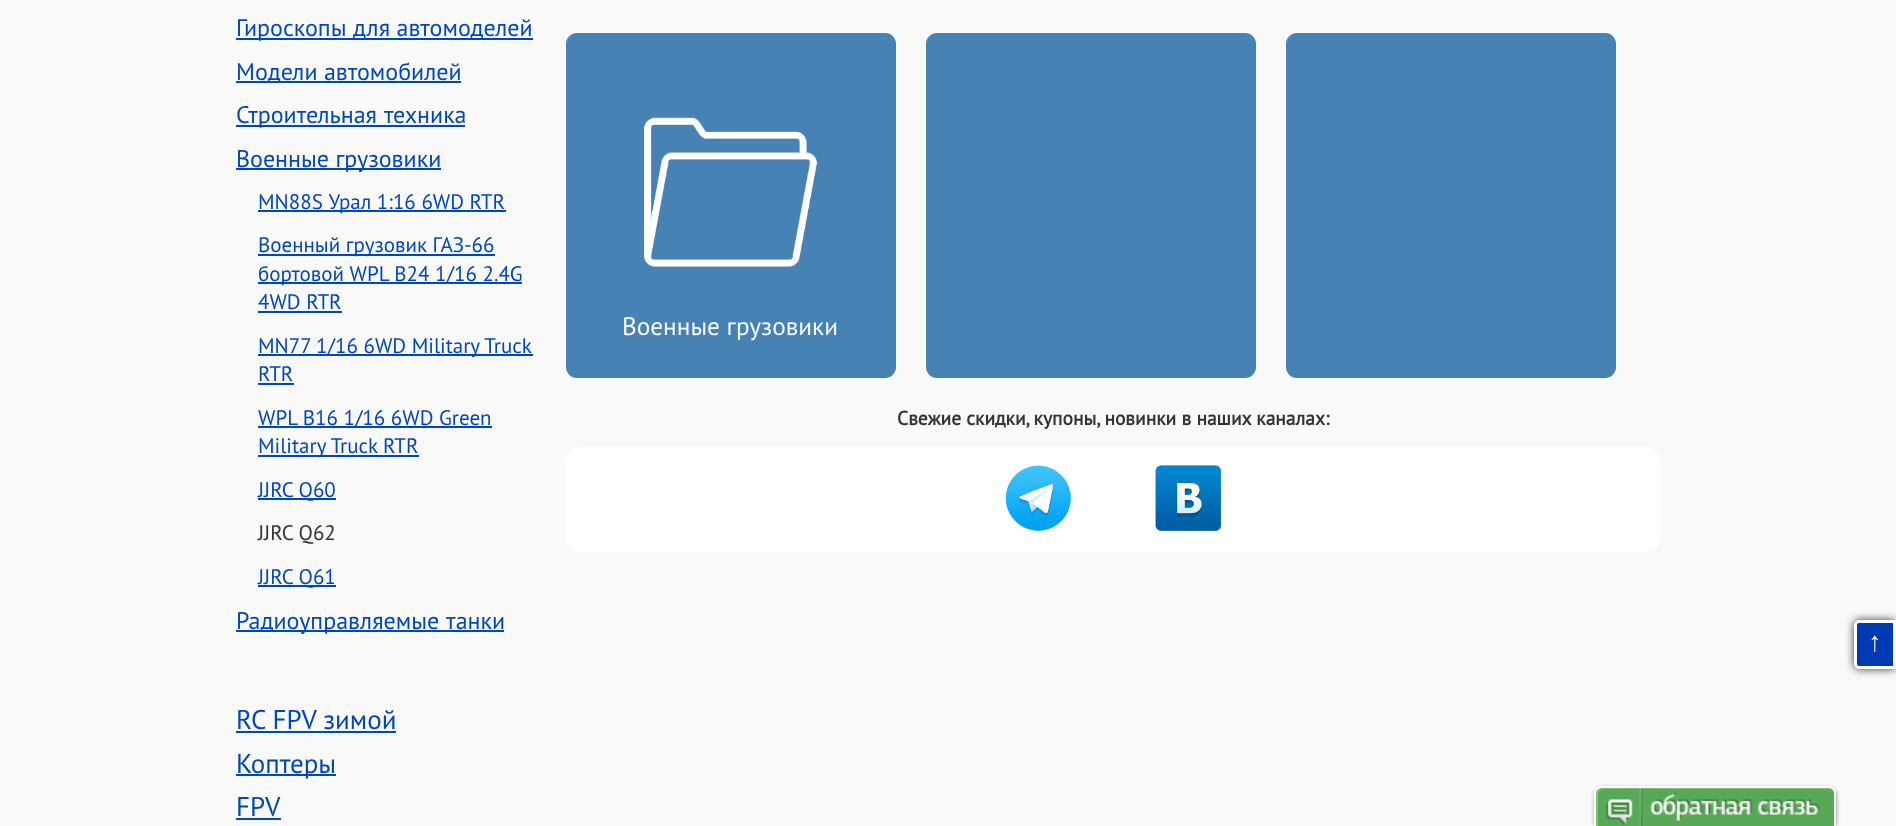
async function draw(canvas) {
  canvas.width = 1896
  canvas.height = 826
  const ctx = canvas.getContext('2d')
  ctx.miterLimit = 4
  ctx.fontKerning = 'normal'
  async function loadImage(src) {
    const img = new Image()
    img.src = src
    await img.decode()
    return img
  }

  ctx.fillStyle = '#f9f9f9'
  ctx.fillRect(0, 0, 1896, 826)
  ctx.fillStyle = '#0047bd'
  ctx.fillRect(236, 38, 297, 2)
  ctx.font = '24px PT Sans'
  ctx.fillText('Гироскопы для автомоделей', 236, 36)
  ctx.fillRect(236, 81, 225, 2)
  ctx.fillText('Модели автомобилей', 236, 80)
  ctx.fillRect(236, 125, 229, 2)
  ctx.wordSpacing = '1px'
  ctx.fillText('Строительная техника', 236, 123)
  ctx.fillRect(236, 168, 205, 2)
  ctx.wordSpacing = '0px'
  ctx.fillText('Военные грузовики', 236, 167)
  ctx.fillRect(258, 210, 248, 2)
  ctx.font = '21px PT Sans'
  ctx.fillText('MN88S Урал 1:16 6WD RTR', 258, 209)
  ctx.fillRect(258, 254, 237, 2)
  ctx.fillText('Военный грузовик ГАЗ-66', 258, 252)
  ctx.fillRect(258, 282, 264, 2)
  ctx.fillText('бортовой WPL B24 1/16 2.4G', 258, 281)
  ctx.fillText('4WD RTR', 258, 309)
  ctx.fillRect(258, 311, 84, 2)
  ctx.fillRect(258, 354, 275, 2)
  ctx.fillText('MN77 1/16 6WD Military Truck', 258, 353)
  ctx.fillText('RTR', 258, 381)
  ctx.fillRect(258, 383, 36, 2)
  ctx.fillRect(258, 426, 234, 2)
  ctx.fillText('WPL B16 1/16 6WD Green', 258, 425)
  ctx.fillRect(258, 455, 161, 2)
  ctx.fillText('Military Truck RTR', 258, 453)
  ctx.fillRect(258, 498, 78, 2)
  ctx.fillText('JJRC Q60', 258, 497)
  ctx.fillStyle = '#333'
  ctx.fillText('JJRC Q62', 258, 540)
  ctx.fillStyle = '#0047bd'
  ctx.fillRect(258, 585, 78, 2)
  ctx.fillText('JJRC Q61', 258, 584)
  ctx.fillRect(236, 630, 268, 2)
  ctx.wordSpacing = '1px'
  ctx.font = '24px PT Sans'
  ctx.fillText('Радиоуправляемые танки', 236, 629)
  ctx.wordSpacing = '0px'
  ctx.font = '27px PT Sans'
  ctx.fillText('RC FPV зимой', 236, 729)
  ctx.fillRect(236, 731, 160, 2)
  ctx.fillRect(236, 774, 100, 2)
  ctx.fillText('Коптеры', 236, 773)
  ctx.fillText('FPV', 236, 816)
  ctx.fillRect(236, 818, 45, 2)
  ctx.fillStyle = '#4682b4'
  ctx.beginPath()
  ctx.roundRect(566, 33, 330, 345, 11)
  ctx.fill()
  ctx.drawImage(await loadImage('image0.png'), 644, 117, 173, 150)
  ctx.font = '25.25px PT Sans'
  ctx.fillStyle = '#fafafa'
  ctx.fillText('Военные грузовики', 622, 335)
  ctx.fillStyle = '#4682b4'
  ctx.beginPath()
  ctx.roundRect(926, 33, 330, 345, 11)
  ctx.fill()
  ctx.beginPath()
  ctx.roundRect(1286, 33, 330, 345, 11)
  ctx.fill()
  ctx.font = 'bold 19.5px PT Sans'
  ctx.fillStyle = '#333'
  ctx.fillText('Свежие скидки, купоны, новинки в наших каналах:', 897, 425)
  ctx.fillStyle = '#fff'
  ctx.beginPath()
  ctx.roundRect(566, 447, 1095, 105, 15)
  ctx.fill()
  ctx.drawImage(await loadImage('image1.png'), 1005, 465, 66, 66)
  ctx.drawImage(await loadImage('image2.png'), 1155, 465, 66, 66)
  ctx.fillStyle = '#333'
  ctx.filter = 'blur(4px)'
  ctx.beginPath()
  ctx.roundRect(1854, 620, 42, 49, 5)
  ctx.fill()
  ctx.filter = 'none'
  ctx.fillStyle = '#0039b4'
  ctx.beginPath()
  ctx.roundRect(1855.5, 621.5, 39, 46, [3.5, 0, 0, 3.5])
  ctx.fill()
  ctx.strokeStyle = '#fff'
  ctx.lineWidth = 3
  ctx.stroke()
  ctx.font = '27px Liberation Sans'
  ctx.fillStyle = '#fafafa'
  ctx.fillText('↑', 1868, 651)
  ctx.fillStyle = '#00000080'
  ctx.filter = 'blur(2px)'
  ctx.beginPath()
  ctx.roundRect(1595, 788, 241, 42, 8)
  ctx.fill()
  ctx.filter = 'none'
  ctx.fillStyle = '#57a957'
  ctx.beginPath()
  ctx.moveTo(1602, 788)
  ctx.lineTo(1829, 788)
  ctx.bezierCurveTo(1832.5, 788, 1835, 790.5, 1835, 794)
  ctx.lineTo(1835, 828)
  ctx.lineTo(1596, 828)
  ctx.lineTo(1596, 794)
  ctx.bezierCurveTo(1596, 790.5, 1598.5, 788, 1602, 788)
  ctx.closePath()
  ctx.fill()
  ctx.fillStyle = '#ffffff40'
  ctx.beginPath()
  ctx.moveTo(1604, 789)
  ctx.lineTo(1831, 789)
  ctx.lineTo(1834, 791)
  ctx.bezierCurveTo(1833, 789, 1831, 788, 1829, 788)
  ctx.lineTo(1602, 788)
  ctx.bezierCurveTo(1599, 788, 1596, 791, 1596, 794)
  ctx.lineTo(1596, 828)
  ctx.lineTo(1598, 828)
  ctx.lineTo(1598, 795)
  ctx.bezierCurveTo(1598, 792, 1600, 789, 1604, 789)
  ctx.closePath()
  ctx.fill()
  ctx.fillStyle = '#fff'
  ctx.beginPath()
  ctx.moveTo(1602, 786)
  ctx.lineTo(1828, 786)
  ctx.bezierCurveTo(1833, 786, 1836, 789, 1836, 794)
  ctx.lineTo(1836, 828)
  ctx.lineTo(1594, 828)
  ctx.lineTo(1594, 794)
  ctx.bezierCurveTo(1594, 789, 1598, 786, 1602, 786)
  ctx.closePath()
  ctx.moveTo(1602, 788)
  ctx.lineTo(1828, 788)
  ctx.bezierCurveTo(1832, 788, 1834, 790, 1834, 794)
  ctx.lineTo(1834, 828)
  ctx.lineTo(1596, 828)
  ctx.lineTo(1596, 794)
  ctx.bezierCurveTo(1596, 790, 1599, 788, 1602, 788)
  ctx.closePath()
  ctx.fill('evenodd')
  ctx.drawImage(await loadImage('image3.png'), 1606, 788, 214, 38)
}

draw(document.querySelector('canvas'))
